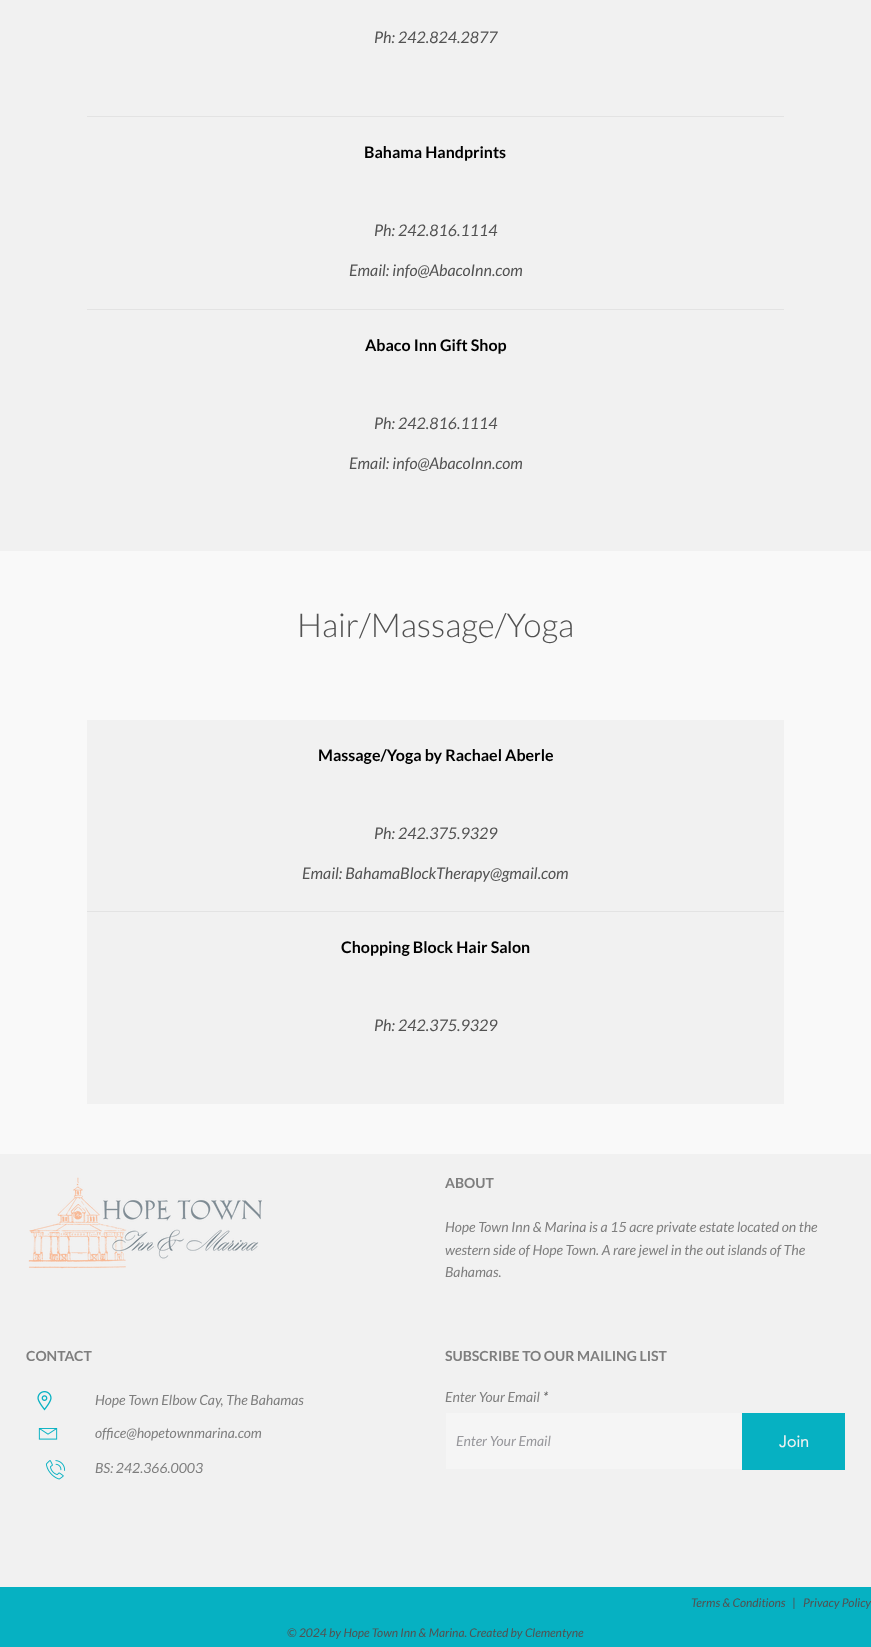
async function draw(canvas) {
  canvas.width = 871
  canvas.height = 1647
  const ctx = canvas.getContext('2d')
  ctx.miterLimit = 4
  ctx.fontKerning = 'normal'
  async function loadImage(src) {
    const img = new Image()
    img.src = src
    await img.decode()
    return img
  }

  ctx.fillStyle = '#f1f1f1'
  ctx.fillRect(0, 0, 871, 1647)
  ctx.fillStyle = '#e3e3e3'
  ctx.fillRect(87, 116, 697, 194)
  ctx.font = 'italic 16px Lato'
  ctx.fillStyle = '#525252'
  ctx.fillText('Ph: 242.824.2877', 374, 43)
  ctx.fillStyle = '#f1f1f1'
  ctx.fillRect(87, 117, 697, 192)
  ctx.font = 'bold 16px Lato'
  ctx.fillStyle = '#000'
  ctx.fillText('Bahama Handprints', 364, 158)
  ctx.font = 'italic 16px Lato'
  ctx.fillStyle = '#525252'
  ctx.fillText('Ph: 242.816.1114', 374, 236)
  ctx.fillText('Email: info@AbacoInn.com', 349, 276)
  ctx.font = 'bold 16px Lato'
  ctx.fillStyle = '#000'
  ctx.fillText('Abaco Inn Gift Shop', 365, 351)
  ctx.font = 'italic 16px Lato'
  ctx.fillStyle = '#525252'
  ctx.fillText('Ph: 242.816.1114', 374, 429)
  ctx.fillText('Email: info@AbacoInn.com', 349, 469)
  ctx.fillStyle = '#f9f9f9'
  ctx.fillRect(0, 551, 871, 603)
  ctx.font = '300 33px Lato'
  ctx.fillStyle = '#525252'
  ctx.fillText('Hair/Massage/Yoga', 297, 637)
  ctx.fillStyle = '#e3e3e3'
  ctx.fillRect(87, 911, 697, 1)
  ctx.fillStyle = '#f1f1f1'
  ctx.fillRect(87, 720, 697, 191)
  ctx.font = 'bold 16px Lato'
  ctx.fillStyle = '#000'
  ctx.fillText('Massage/Yoga by Rachael Aberle', 318, 761)
  ctx.font = 'italic 16px Lato'
  ctx.fillStyle = '#525252'
  ctx.fillText('Ph: 242.375.9329', 374, 839)
  ctx.fillText('Email: BahamaBlockTherapy@gmail.com', 302, 879)
  ctx.fillStyle = '#f1f1f1'
  ctx.fillRect(87, 912, 697, 192)
  ctx.font = 'bold 16px Lato'
  ctx.fillStyle = '#000'
  ctx.fillText('Chopping Block Hair Salon', 341, 953)
  ctx.font = 'italic 16px Lato'
  ctx.fillStyle = '#525252'
  ctx.fillText('Ph: 242.375.9329', 374, 1031)
  ctx.drawImage(await loadImage('image0.png'), 28, 1177, 234, 92)
  ctx.font = 'bold 14px Lato'
  ctx.fillStyle = '#7e7e7e'
  ctx.fillText('ABOUT', 445, 1188)
  ctx.font = 'italic 14px Lato'
  ctx.fillText('Hope Town Inn & Marina is a 15 acre private estate located on the', 445, 1232)
  ctx.fillText('western side of Hope Town. A rare jewel in the out islands of The', 445, 1255)
  ctx.fillText('Bahamas.', 445, 1277)
  ctx.font = 'bold 14px Lato'
  ctx.fillText('CONTACT', 26, 1361)
  ctx.fillText('SUBSCRIBE TO OUR MAILING LIST', 445, 1361)
  ctx.font = 'italic 14px Lato'
  ctx.fillText('Enter Your Email', 445, 1402)
  ctx.fillStyle = '#525252'
  ctx.fillText('*', 543, 1402)
  ctx.fillStyle = '#f5f5f5'
  ctx.fillRect(446, 1413, 296, 56)
  ctx.fillStyle = '#97979b'
  ctx.fillText('Enter Your Email', 456, 1446)
  ctx.fillStyle = '#06b1c2'
  ctx.fillRect(742, 1413, 103, 57)
  ctx.font = 'bold 16px "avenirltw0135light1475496"'
  ctx.fillStyle = '#f1f1f1'
  ctx.fillText('Join', 779, 1447)
  ctx.drawImage(await loadImage('image1.png'), 37, 1391, 15, 20)
  ctx.font = 'italic 14px Lato'
  ctx.fillStyle = '#7e7e7e'
  ctx.fillText('Hope Town Elbow Cay, The Bahamas', 95, 1405)
  ctx.drawImage(await loadImage('image2.png'), 38, 1428, 20, 12)
  ctx.fillText('office@hopetownmarina.com', 95, 1438)
  ctx.drawImage(await loadImage('image3.png'), 45, 1460, 21, 20)
  ctx.fillText('BS: 242.366.0003', 95, 1473)
  ctx.fillStyle = '#06b1c2'
  ctx.fillRect(0, 1587, 871, 60)
  ctx.font = 'italic 12px Lato'
  ctx.fillStyle = '#525252'
  ctx.fillText('Terms & Conditions   |   Privacy Policy', 691, 1607)
  ctx.fillText('© 2024 by Hope Town Inn & Marina. Created by Clementyne', 287, 1637)
}

draw(document.querySelector('canvas'))
